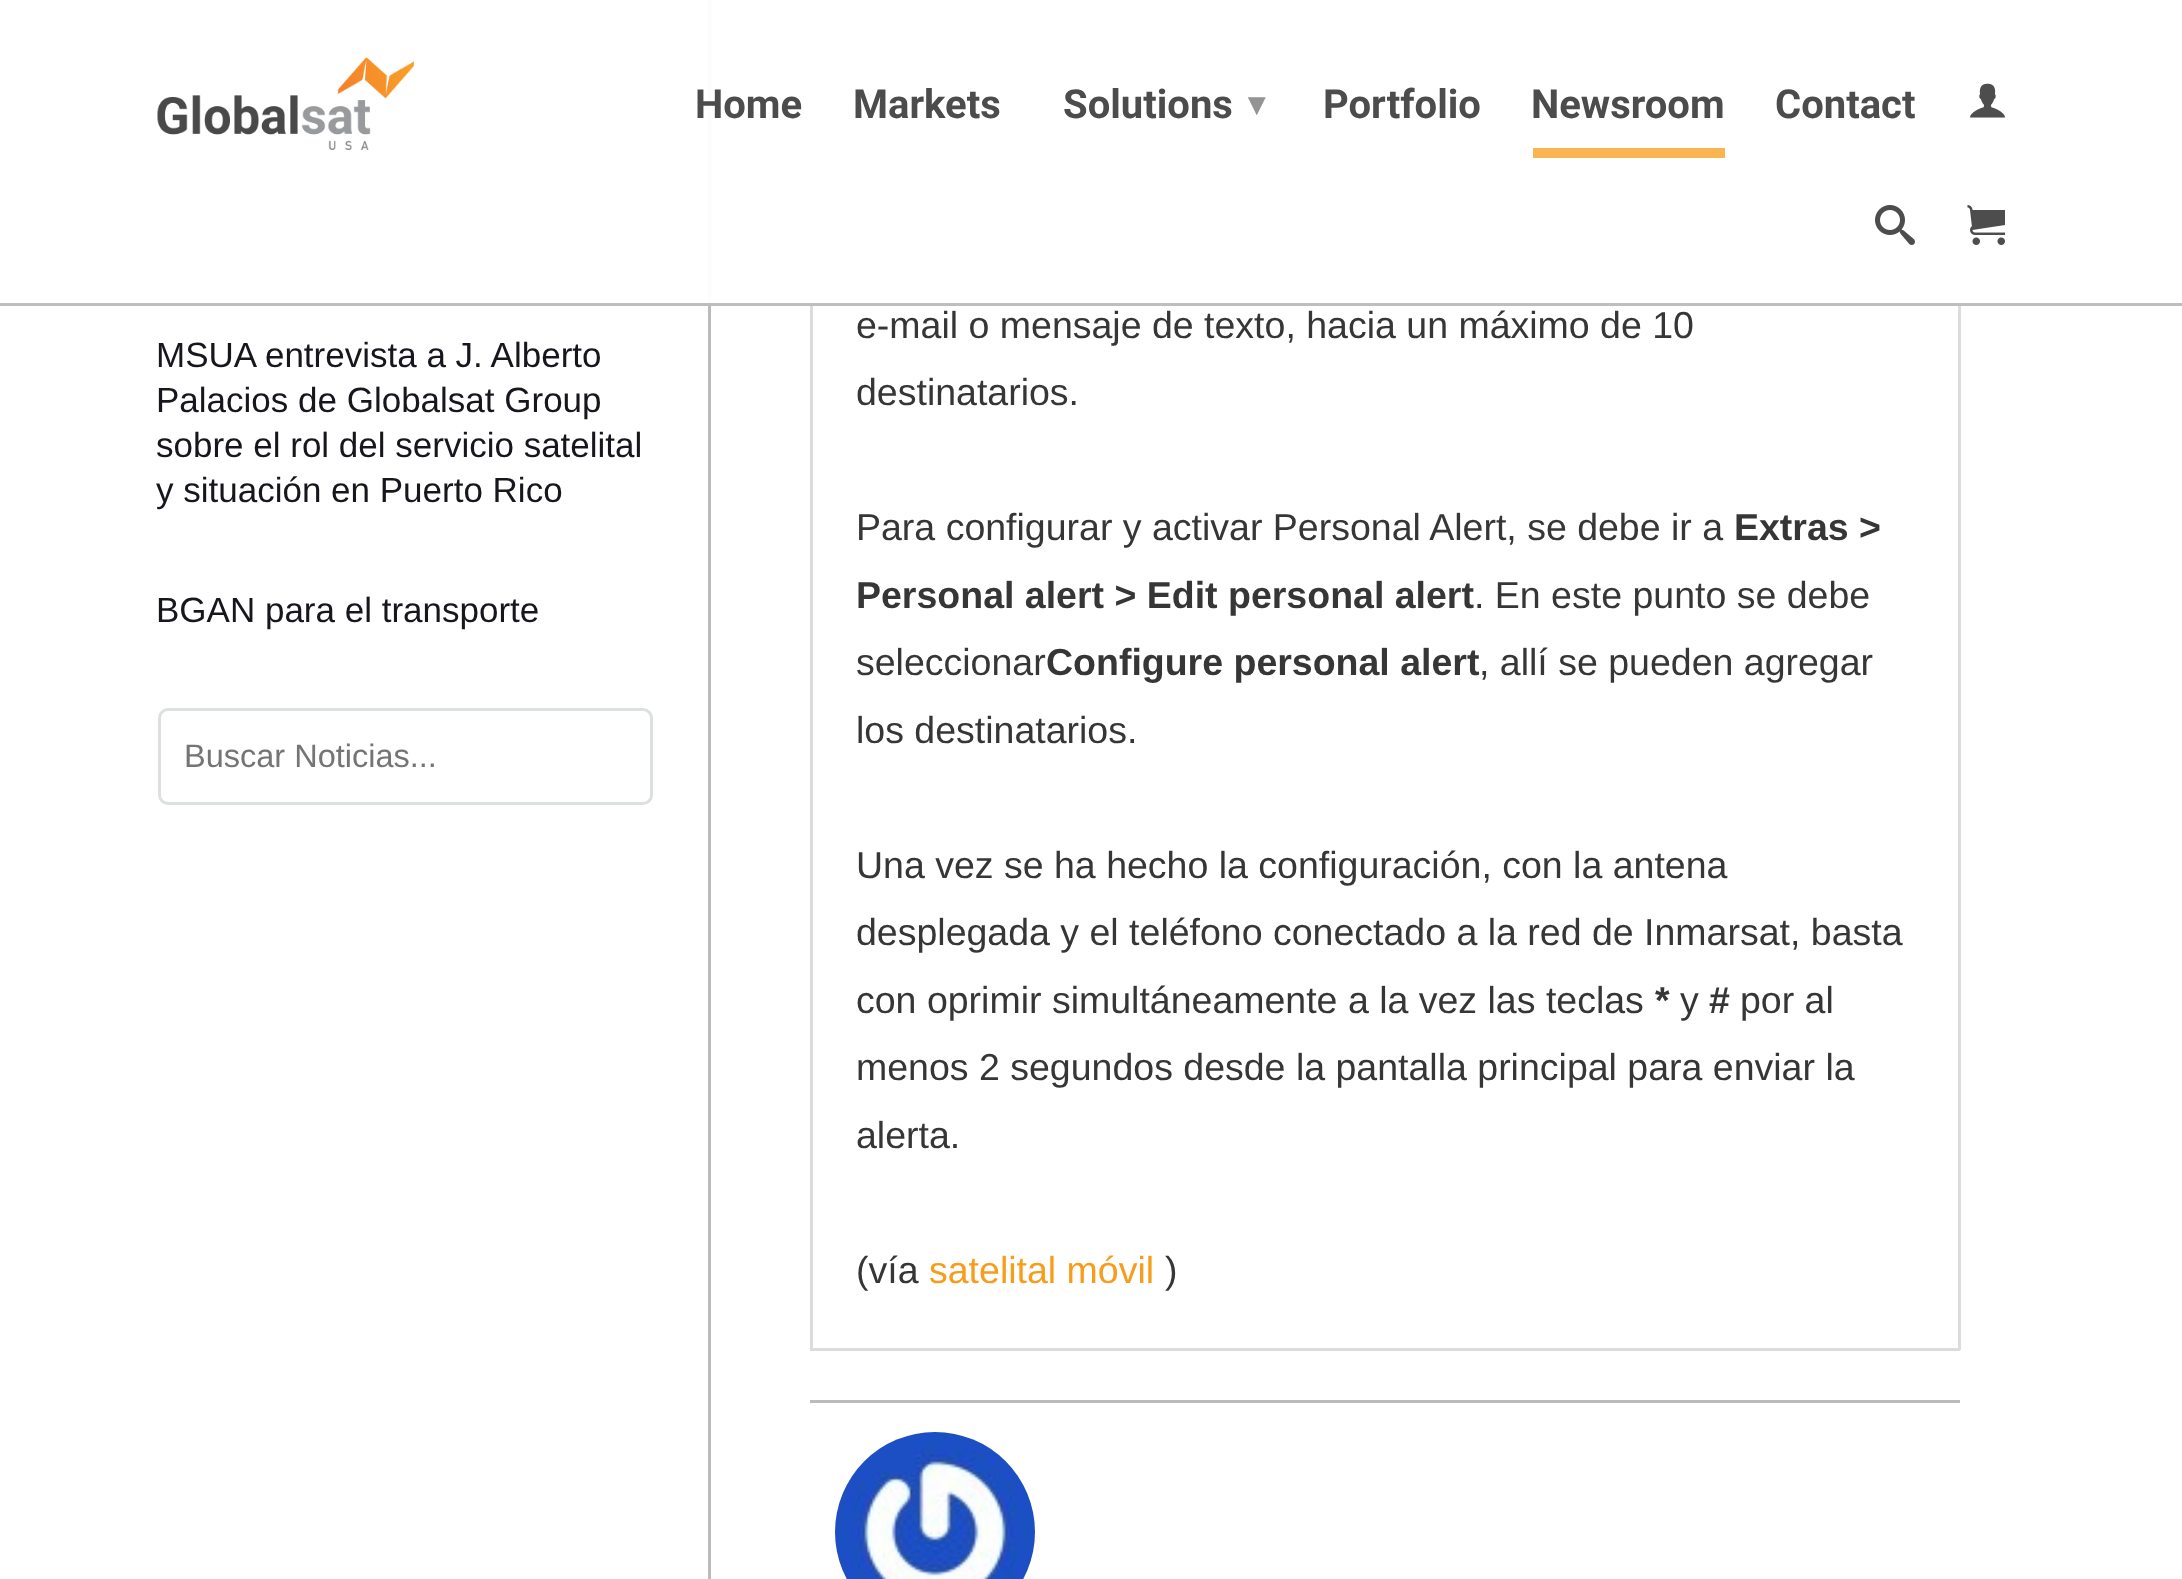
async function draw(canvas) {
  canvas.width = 2182
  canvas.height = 1579
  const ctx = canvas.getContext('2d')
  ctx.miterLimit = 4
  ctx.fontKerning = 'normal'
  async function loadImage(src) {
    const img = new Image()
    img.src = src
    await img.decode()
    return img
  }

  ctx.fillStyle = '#fff'
  ctx.fillRect(0, 0, 2182, 1579)
  ctx.fillStyle = '#bebebe'
  ctx.fillRect(0, 303, 2182, 3)
  ctx.drawImage(await loadImage('image0.png'), 157, 57, 257, 93)
  ctx.fillStyle = '#fcfcfc'
  ctx.fillRect(708, 0, 3, 305)
  ctx.font = 'bold 40px Roboto'
  ctx.fillStyle = '#4c4c4c'
  ctx.fillText('Home', 695, 118)
  ctx.fillText('Markets', 853, 118)
  ctx.fillText('Solutions', 1063, 118)
  ctx.font = 'bold 33px DejaVu Sans'
  ctx.fillStyle = '#949494'
  ctx.fillText('▾', 1248, 115)
  ctx.font = 'bold 40px Roboto'
  ctx.fillStyle = '#4c4c4c'
  ctx.fillText('Portfolio', 1323, 118)
  ctx.fillText('Newsroom', 1531, 118)
  ctx.fillStyle = '#fab452'
  ctx.fillRect(1533, 148, 192, 10)
  ctx.fillStyle = '#4c4c4c'
  ctx.fillText('Contact', 1775, 118)
  ctx.drawImage(await loadImage('image1.png'), 1970, 83, 35, 35)
  ctx.drawImage(await loadImage('image2.png'), 1875, 205, 40, 40)
  ctx.drawImage(await loadImage('image3.png'), 1967, 205, 38, 40)
  ctx.font = '35px Liberation Sans'
  ctx.fillStyle = '#16161d'
  ctx.fillText('MSUA entrevista a J. Alberto', 156, 367)
  ctx.fillText('Palacios de Globalsat Group', 156, 412)
  ctx.fillText('sobre el rol del servicio satelital', 156, 457)
  ctx.fillText('y situación en Puerto Rico', 156, 502)
  ctx.fillText('BGAN para el transporte', 156, 622)
  ctx.beginPath()
  ctx.roundRect(159.5, 709.5, 492, 94, 8.5)
  ctx.strokeStyle = '#dce0e0'
  ctx.lineWidth = 3
  ctx.stroke()
  ctx.font = '32.5px Liberation Sans'
  ctx.fillStyle = '#757575'
  ctx.fillText('Buscar Noticias...', 184, 767)
  ctx.fillStyle = '#bbb'
  ctx.fillRect(708, 305, 3, 1274)
  ctx.fillStyle = '#bebebe'
  ctx.fillRect(708, 303, 3, 2)
  ctx.fillStyle = '#dcdcdc'
  ctx.fillRect(810, 1348, 1150, 3)
  ctx.fillRect(1958, 306, 3, 1044)
  ctx.fillStyle = '#fdfdfd'
  ctx.fillRect(1958, 303, 3, 2)
  ctx.fillStyle = '#bebebe'
  ctx.fillRect(1958, 303, 3, 2)
  ctx.fillStyle = '#dcdcdc'
  ctx.fillRect(810, 306, 3, 1044)
  ctx.fillStyle = '#fdfdfd'
  ctx.fillRect(810, 303, 3, 2)
  ctx.fillStyle = '#bebebe'
  ctx.fillRect(810, 303, 3, 2)
  ctx.font = '37.5px Liberation Sans'
  ctx.fillStyle = '#363636'
  ctx.fillText('e-mail o mensaje de texto, hacia un máximo de 10', 856, 338)
  ctx.fillText('destinatarios.', 856, 405)
  ctx.fillText('Para configurar y activar Personal Alert, se debe ir a', 856, 540)
  ctx.font = 'bold 37.5px Liberation Sans'
  ctx.fillText('Extras >', 1734, 540)
  ctx.fillText('Personal alert > Edit personal alert', 856, 608)
  ctx.font = '37.5px Liberation Sans'
  ctx.fillText('. En este punto se debe', 1474, 608)
  ctx.fillText('seleccionar', 856, 675)
  ctx.font = 'bold 37.5px Liberation Sans'
  ctx.fillText('Configure personal alert', 1046, 675)
  ctx.font = '37.5px Liberation Sans'
  ctx.fillText(', allí se pueden agregar', 1479, 675)
  ctx.fillText('los destinatarios.', 856, 743)
  ctx.fillText('Una vez se ha hecho la configuración, con la antena', 856, 878)
  ctx.fillText('desplegada y el teléfono conectado a la red de Inmarsat, basta', 856, 945)
  ctx.fillText('con oprimir simultáneamente a la vez las teclas', 856, 1013)
  ctx.font = 'bold 37.5px Liberation Sans'
  ctx.fillText('*', 1655, 1013)
  ctx.font = '37.5px Liberation Sans'
  ctx.fillText('y', 1680, 1013)
  ctx.font = 'bold 37.5px Liberation Sans'
  ctx.fillText('#', 1709, 1013)
  ctx.font = '37.5px Liberation Sans'
  ctx.fillText('por al', 1740, 1013)
  ctx.fillText('menos 2 segundos desde la pantalla principal para enviar la', 856, 1080)
  ctx.fillText('alerta.', 856, 1148)
  ctx.fillText('(vía', 856, 1283)
  ctx.fillStyle = '#f89c1b'
  ctx.fillText('satelital móvil', 929, 1283)
  ctx.fillStyle = '#363636'
  ctx.fillText(')', 1165, 1283)
  ctx.fillStyle = '#bbb'
  ctx.fillRect(810, 1400, 1150, 3)
  ctx.drawImage(await loadImage('image4.png'), 835, 1432, 200, 147)
}

draw(document.querySelector('canvas'))
